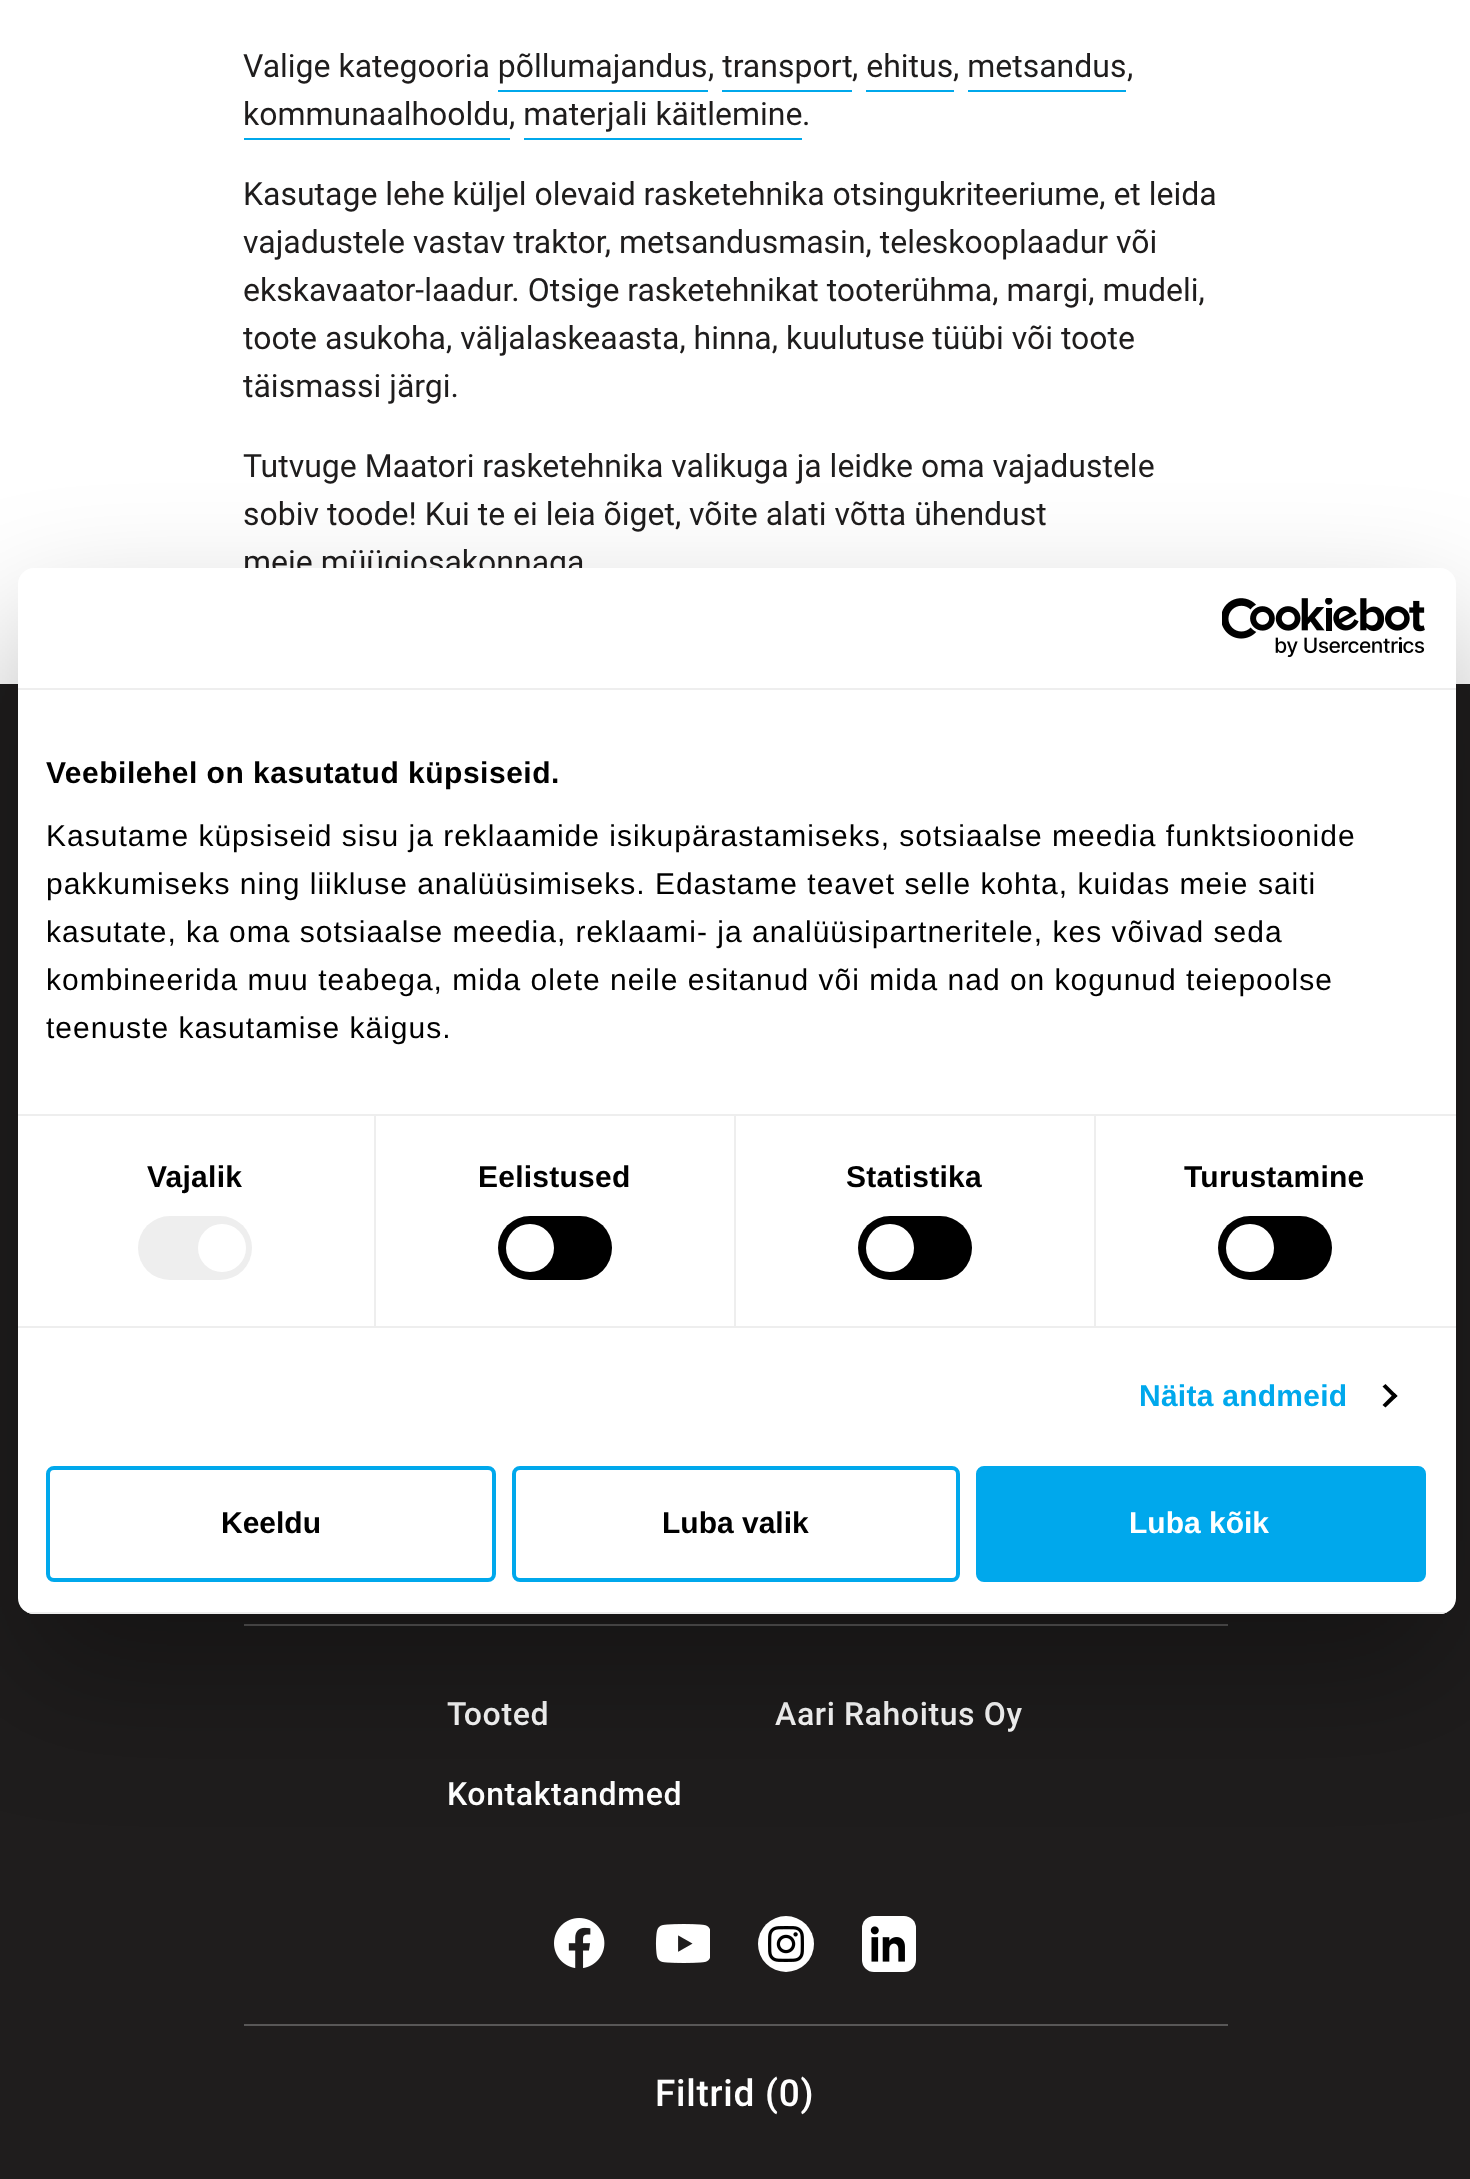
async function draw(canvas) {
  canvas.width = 1470
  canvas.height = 2179
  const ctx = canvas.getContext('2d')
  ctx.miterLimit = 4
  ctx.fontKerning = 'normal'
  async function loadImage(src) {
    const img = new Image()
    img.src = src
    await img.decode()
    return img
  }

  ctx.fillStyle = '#fff'
  ctx.fillRect(0, 0, 1470, 2179)
  ctx.font = '32px Roboto'
  ctx.fillStyle = '#1f1d1d'
  ctx.fillText('Valige kategooria põllumajandus', 243, 77)
  ctx.fillText(', transport', 708, 77)
  ctx.fillText(', ehitus', 852, 77)
  ctx.fillText(', metsandus', 953, 77)
  ctx.fillText(',', 1127, 77)
  ctx.fillStyle = '#00a8eb'
  ctx.fillRect(498, 90, 210, 2)
  ctx.fillRect(722, 90, 130, 2)
  ctx.fillRect(866, 90, 88, 2)
  ctx.fillRect(968, 90, 158, 2)
  ctx.fillStyle = '#1f1d1d'
  ctx.fillText('kommunaalhooldu', 243, 125)
  ctx.fillStyle = '#00a8eb'
  ctx.fillRect(244, 138, 266, 2)
  ctx.fillStyle = '#1f1d1d'
  ctx.fillText(', materjali käitlemine', 509, 125)
  ctx.fillText('.', 802, 125)
  ctx.fillStyle = '#00a8eb'
  ctx.fillRect(524, 138, 278, 2)
  ctx.fillStyle = '#1f1d1d'
  ctx.fillText('Kasutage lehe küljel olevaid rasketehnika otsingukriteeriume, et leida', 243, 205)
  ctx.fillText('vajadustele vastav traktor, metsandusmasin, teleskooplaadur või', 243, 253)
  ctx.fillText('ekskavaator-laadur. Otsige rasketehnikat tooterühma, margi, mudeli,', 243, 301)
  ctx.fillText('toote asukoha, väljalaskeaasta, hinna, kuulutuse tüübi või toote', 243, 349)
  ctx.fillText('täismassi järgi.', 243, 397)
  ctx.fillText('Tutvuge Maatori rasketehnika valikuga ja leidke oma vajadustele', 243, 477)
  ctx.fillText('sobiv toode! Kui te ei leia õiget, võite alati võtta ühendust', 243, 525)
  ctx.fillText('meie müügiosakonnaga', 243, 573)
  ctx.fillRect(0, 684, 1470, 1495)
  ctx.letterSpacing = '0.75px'
  ctx.font = '500 37px Roboto'
  ctx.fillStyle = '#fff'
  ctx.fillText('Filtrid (0)', 655, 2106)
  ctx.fillStyle = '#585757'
  ctx.fillRect(244, 1624, 984, 2)
  ctx.letterSpacing = '0.6px'
  ctx.font = '500 32px Roboto'
  ctx.fillStyle = '#fff'
  ctx.fillText('Tooted', 447, 1725)
  ctx.fillText('Aari Rahoitus Oy', 775, 1725)
  ctx.fillText('Kontaktandmed', 447, 1805)
  ctx.drawImage(await loadImage('image0.png'), 554, 1918, 51, 50)
  ctx.drawImage(await loadImage('image1.png'), 655, 1924, 55, 39)
  ctx.beginPath()
  ctx.arc(786, 1944, 28, 0, 2 * Math.PI)
  ctx.fill()
  ctx.drawImage(await loadImage('image2.png'), 768, 1926, 36, 36)
  ctx.beginPath()
  ctx.roundRect(862, 1916, 54, 56, 12)
  ctx.fill()
  ctx.drawImage(await loadImage('image3.png'), 870, 1926, 35, 36)
  ctx.fillStyle = '#585757'
  ctx.fillRect(244, 2024, 984, 2)
  ctx.fillStyle = '#0000004d'
  ctx.filter = 'blur(68px)'
  ctx.beginPath()
  ctx.roundRect(18, 632, 1438, 1046, 16)
  ctx.fill()
  ctx.filter = 'none'
  ctx.fillStyle = '#fff'
  ctx.beginPath()
  ctx.roundRect(18, 568, 1438, 1046, 16)
  ctx.fill()
  ctx.fillStyle = '#eee'
  ctx.fillRect(18, 688, 1438, 2)
  ctx.drawImage(await loadImage('image4.png'), 1222, 598, 203, 60)
  ctx.fillRect(18, 1114, 1438, 2)
  ctx.letterSpacing = '0.5px'
  ctx.font = 'bold 30px Liberation Sans'
  ctx.fillStyle = '#000'
  ctx.fillText('Veebilehel on kasutatud küpsiseid.', 46, 783)
  ctx.letterSpacing = '1px'
  ctx.font = '30px Liberation Sans'
  ctx.fillText('Kasutame küpsiseid sisu ja reklaamide isikupärastamiseks, sotsiaalse meedia funktsioonide', 46, 846)
  ctx.fillText('pakkumiseks ning liikluse analüüsimiseks. Edastame teavet selle kohta, kuidas meie saiti', 46, 894)
  ctx.fillText('kasutate, ka oma sotsiaalse meedia, reklaami- ja analüüsipartneritele, kes võivad seda', 46, 942)
  ctx.fillText('kombineerida muu teabega, mida olete neile esitanud või mida nad on kogunud teiepoolse', 46, 990)
  ctx.fillText('teenuste kasutamise käigus.', 46, 1038)
  ctx.fillStyle = '#eee'
  ctx.fillRect(18, 1326, 1438, 2)
  ctx.fillRect(374, 1116, 2, 210)
  ctx.letterSpacing = '0.25px'
  ctx.font = 'bold 30px Liberation Sans'
  ctx.fillStyle = '#000'
  ctx.fillText('Vajalik', 147, 1187)
  ctx.fillStyle = '#eee'
  ctx.beginPath()
  ctx.roundRect(138, 1216, 114, 64, 32)
  ctx.fill()
  ctx.fillStyle = '#fff'
  ctx.beginPath()
  ctx.arc(222, 1248, 24, 0, 2 * Math.PI)
  ctx.fill()
  ctx.fillStyle = '#eee'
  ctx.fillRect(734, 1116, 2, 210)
  ctx.fillStyle = '#000'
  ctx.fillText('Eelistused', 478, 1187)
  ctx.beginPath()
  ctx.roundRect(498, 1216, 114, 64, 32)
  ctx.fill()
  ctx.fillStyle = '#fff'
  ctx.beginPath()
  ctx.arc(530, 1248, 24, 0, 2 * Math.PI)
  ctx.fill()
  ctx.fillStyle = '#eee'
  ctx.fillRect(1094, 1116, 2, 210)
  ctx.fillStyle = '#000'
  ctx.fillText('Statistika', 846, 1187)
  ctx.beginPath()
  ctx.roundRect(858, 1216, 114, 64, 32)
  ctx.fill()
  ctx.fillStyle = '#fff'
  ctx.beginPath()
  ctx.arc(890, 1248, 24, 0, 2 * Math.PI)
  ctx.fill()
  ctx.fillStyle = '#000'
  ctx.fillText('Turustamine', 1184, 1187)
  ctx.beginPath()
  ctx.roundRect(1218, 1216, 114, 64, 32)
  ctx.fill()
  ctx.fillStyle = '#fff'
  ctx.beginPath()
  ctx.arc(1250, 1248, 24, 0, 2 * Math.PI)
  ctx.fill()
  ctx.fillStyle = '#00a8ec'
  ctx.fillText('Näita andmeid', 1139, 1406)
  ctx.fillStyle = '#000'
  ctx.beginPath()
  ctx.moveTo(1385.5, 1384)
  ctx.lineTo(1397.5, 1396)
  ctx.lineTo(1394.5, 1398.5)
  ctx.lineTo(1382.5, 1386.5)
  ctx.closePath()
  ctx.fill()
  ctx.beginPath()
  ctx.moveTo(1394.5, 1393)
  ctx.lineTo(1397.5, 1396)
  ctx.lineTo(1385.5, 1407.5)
  ctx.lineTo(1382.5, 1405)
  ctx.closePath()
  ctx.fill()
  ctx.save()
  ctx.beginPath()
  ctx.roundRect(18, 568, 1438, 1046, 16)
  ctx.clip()
  ctx.fillStyle = '#eee'
  ctx.fillRect(18, 1612, 1438, 2)
  ctx.restore()
  ctx.beginPath()
  ctx.roundRect(48, 1468, 446, 112, 6)
  ctx.strokeStyle = '#00a8ec'
  ctx.lineWidth = 4
  ctx.stroke()
  ctx.letterSpacing = '0px'
  ctx.fillText('Keeldu', 221, 1533)
  ctx.beginPath()
  ctx.roundRect(514, 1468, 444, 112, 6)
  ctx.stroke()
  ctx.fillText('Luba valik', 662, 1533)
  ctx.fillStyle = '#00a8ec'
  ctx.beginPath()
  ctx.roundRect(978, 1468, 446, 112, 6)
  ctx.fill()
  ctx.stroke()
  ctx.fillStyle = '#fff'
  ctx.fillText('Luba kõik', 1129, 1533)
}

draw(document.querySelector('canvas'))
